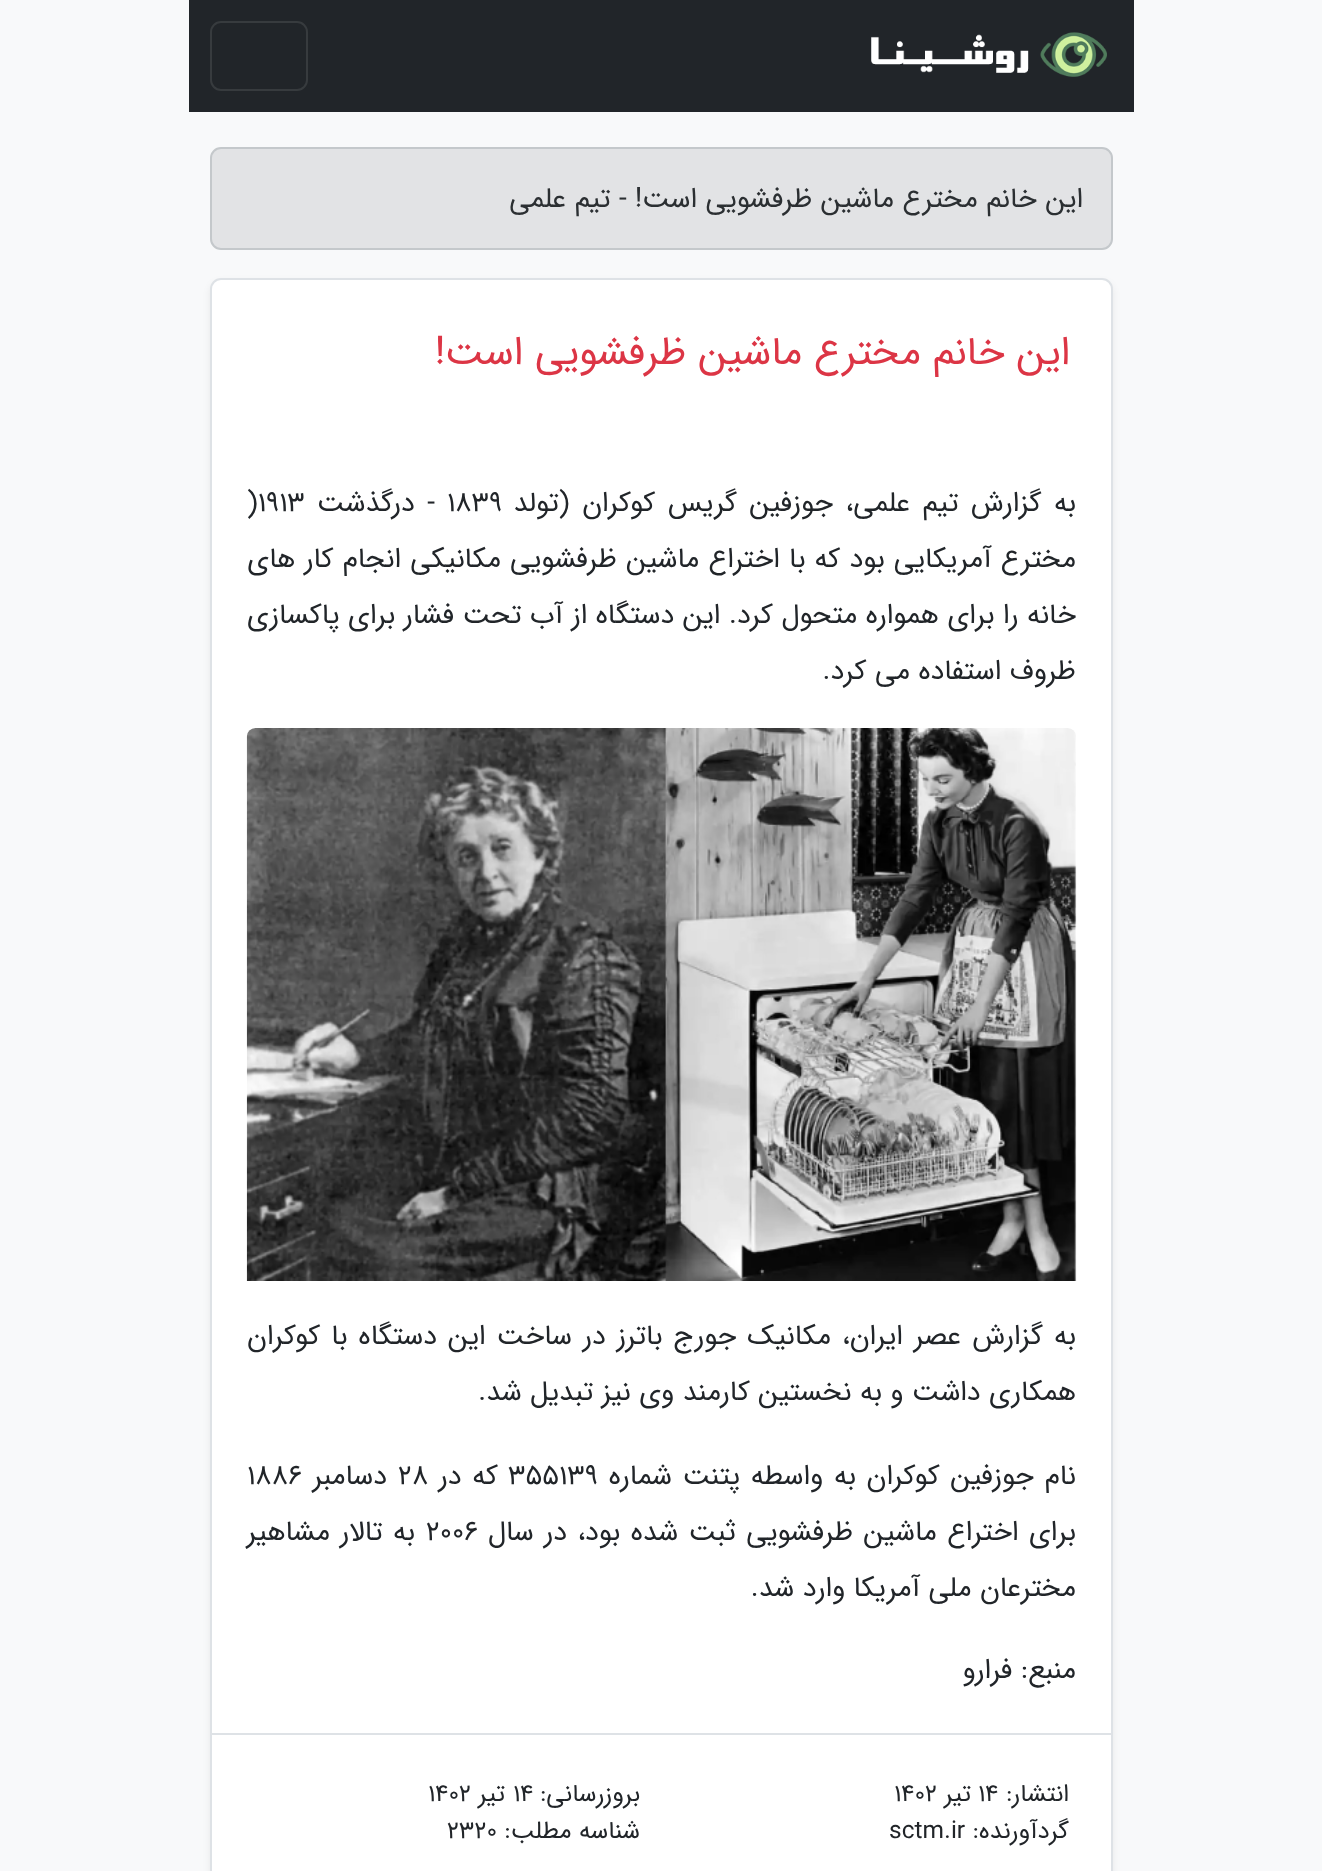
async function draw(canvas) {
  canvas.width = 1322
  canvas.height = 1871
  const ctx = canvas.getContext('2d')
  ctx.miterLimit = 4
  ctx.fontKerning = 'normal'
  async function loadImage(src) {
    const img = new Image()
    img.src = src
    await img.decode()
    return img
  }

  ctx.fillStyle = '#f8f9fa'
  ctx.fillRect(0, 0, 1322, 1871)
  ctx.fillStyle = '#212529'
  ctx.fillRect(189, 0, 945, 112)
  ctx.drawImage(await loadImage('image0.png'), 871, 32, 236, 45)
  ctx.beginPath()
  ctx.roundRect(211, 22, 96, 68, 10)
  ctx.strokeStyle = '#373b3e'
  ctx.lineWidth = 2
  ctx.stroke()
  ctx.fillStyle = '#e2e3e5'
  ctx.beginPath()
  ctx.roundRect(211, 148, 901, 101, 10)
  ctx.fill()
  ctx.strokeStyle = '#c4c8cb'
  ctx.stroke()
  ctx.direction = 'rtl'
  ctx.font = '28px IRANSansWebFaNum'
  ctx.fillStyle = '#2b2f32'
  ctx.fillText('این خانم مخترع ماشین ظرفشویی است! - تیم علمی', 1083, 207)
  ctx.fillStyle = '#00000012'
  ctx.filter = 'blur(3.5px)'
  ctx.beginPath()
  ctx.roundRect(210, 282, 903, 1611, 11)
  ctx.fill()
  ctx.filter = 'none'
  ctx.fillStyle = '#fff'
  ctx.beginPath()
  ctx.roundRect(211, 279, 901, 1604, 10)
  ctx.fill()
  ctx.strokeStyle = '#dee2e6'
  ctx.stroke()
  ctx.font = '39.7px IRANSansWebFaNum'
  ctx.fillStyle = '#dc3545'
  ctx.fillText('این خانم مخترع ماشین ظرفشویی است!', 1070, 364)
  ctx.wordSpacing = '4px'
  ctx.font = '28px IRANSansWebFaNum'
  ctx.fillStyle = '#212529'
  ctx.fillText('به گزارش تیم علمی، جوزفین گریس کوکران (تولد', 1076, 511)
  ctx.wordSpacing = '0px'
  ctx.direction = 'ltr'
  ctx.fillText('1839', 447, 511)
  ctx.wordSpacing = '4px'
  ctx.direction = 'rtl'
  ctx.fillText('- درگذشت', 435, 511)
  ctx.wordSpacing = '0px'
  ctx.direction = 'ltr'
  ctx.fillText(')1913', 247, 511)
  ctx.wordSpacing = '0.75px'
  ctx.direction = 'rtl'
  ctx.fillText('مخترع آمریکایی بود که با اختراع ماشین ظرفشویی مکانیکی انجام کار های', 1076, 567)
  ctx.wordSpacing = '0.1px'
  ctx.fillText('خانه را برای همواره متحول کرد. این دستگاه از آب تحت فشار برای پاکسازی', 1076, 623)
  ctx.wordSpacing = '0px'
  ctx.fillText('ظروف استفاده می کرد.', 1076, 679)
  ctx.drawImage(await loadImage('image1.png'), 246, 728, 831, 553)
  ctx.wordSpacing = '2.6px'
  ctx.fillText('به گزارش عصر ایران، مکانیک جورج باترز در ساخت این دستگاه با کوکران', 1076, 1344)
  ctx.wordSpacing = '0px'
  ctx.fillText('همکاری داشت و به نخستین کارمند وی نیز تبدیل شد.', 1076, 1400)
  ctx.wordSpacing = '2.25px'
  ctx.fillText('نام جوزفین کوکران به واسطه پتنت شماره', 1076, 1484)
  ctx.wordSpacing = '0px'
  ctx.direction = 'ltr'
  ctx.fillText('355139', 508, 1484)
  ctx.wordSpacing = '2.25px'
  ctx.direction = 'rtl'
  ctx.fillText('که در', 498, 1484)
  ctx.wordSpacing = '0px'
  ctx.direction = 'ltr'
  ctx.fillText('28', 398, 1484)
  ctx.direction = 'rtl'
  ctx.fillText('دسامبر', 387, 1484)
  ctx.direction = 'ltr'
  ctx.fillText('1886', 247, 1484)
  ctx.wordSpacing = '2px'
  ctx.direction = 'rtl'
  ctx.fillText('برای اختراع ماشین ظرفشویی ثبت شده بود، در سال', 1076, 1540)
  ctx.wordSpacing = '0px'
  ctx.direction = 'ltr'
  ctx.fillText('2006', 426, 1540)
  ctx.wordSpacing = '2px'
  ctx.direction = 'rtl'
  ctx.fillText('به تالار مشاهیر', 415, 1540)
  ctx.wordSpacing = '0px'
  ctx.fillText('مخترعان ملی آمریکا وارد شد.', 1076, 1596)
  ctx.fillText('منبع: فرارو', 1076, 1678)
  ctx.fillStyle = '#dee2e6'
  ctx.fillRect(212, 1733, 899, 2)
  ctx.font = '24.5px IRANSansWebFaNum'
  ctx.fillStyle = '#212529'
  ctx.fillText('انتشار:', 1069, 1801)
  ctx.direction = 'ltr'
  ctx.fillText('14', 978, 1801)
  ctx.direction = 'rtl'
  ctx.fillText('تیر', 971, 1801)
  ctx.direction = 'ltr'
  ctx.fillText('1402', 894, 1801)
  ctx.direction = 'rtl'
  ctx.fillText('بروزرسانی:', 640, 1801)
  ctx.direction = 'ltr'
  ctx.fillText('14', 513, 1801)
  ctx.direction = 'rtl'
  ctx.fillText('تیر', 505, 1801)
  ctx.direction = 'ltr'
  ctx.fillText('1402', 428, 1801)
  ctx.direction = 'rtl'
  ctx.fillText('گردآورنده:', 1069, 1838)
  ctx.direction = 'ltr'
  ctx.fillText('sctm.ir', 889, 1838)
  ctx.direction = 'rtl'
  ctx.fillText('شناسه مطلب:', 640, 1838)
  ctx.direction = 'ltr'
  ctx.fillText('2320', 447, 1838)
}

draw(document.querySelector('canvas'))
